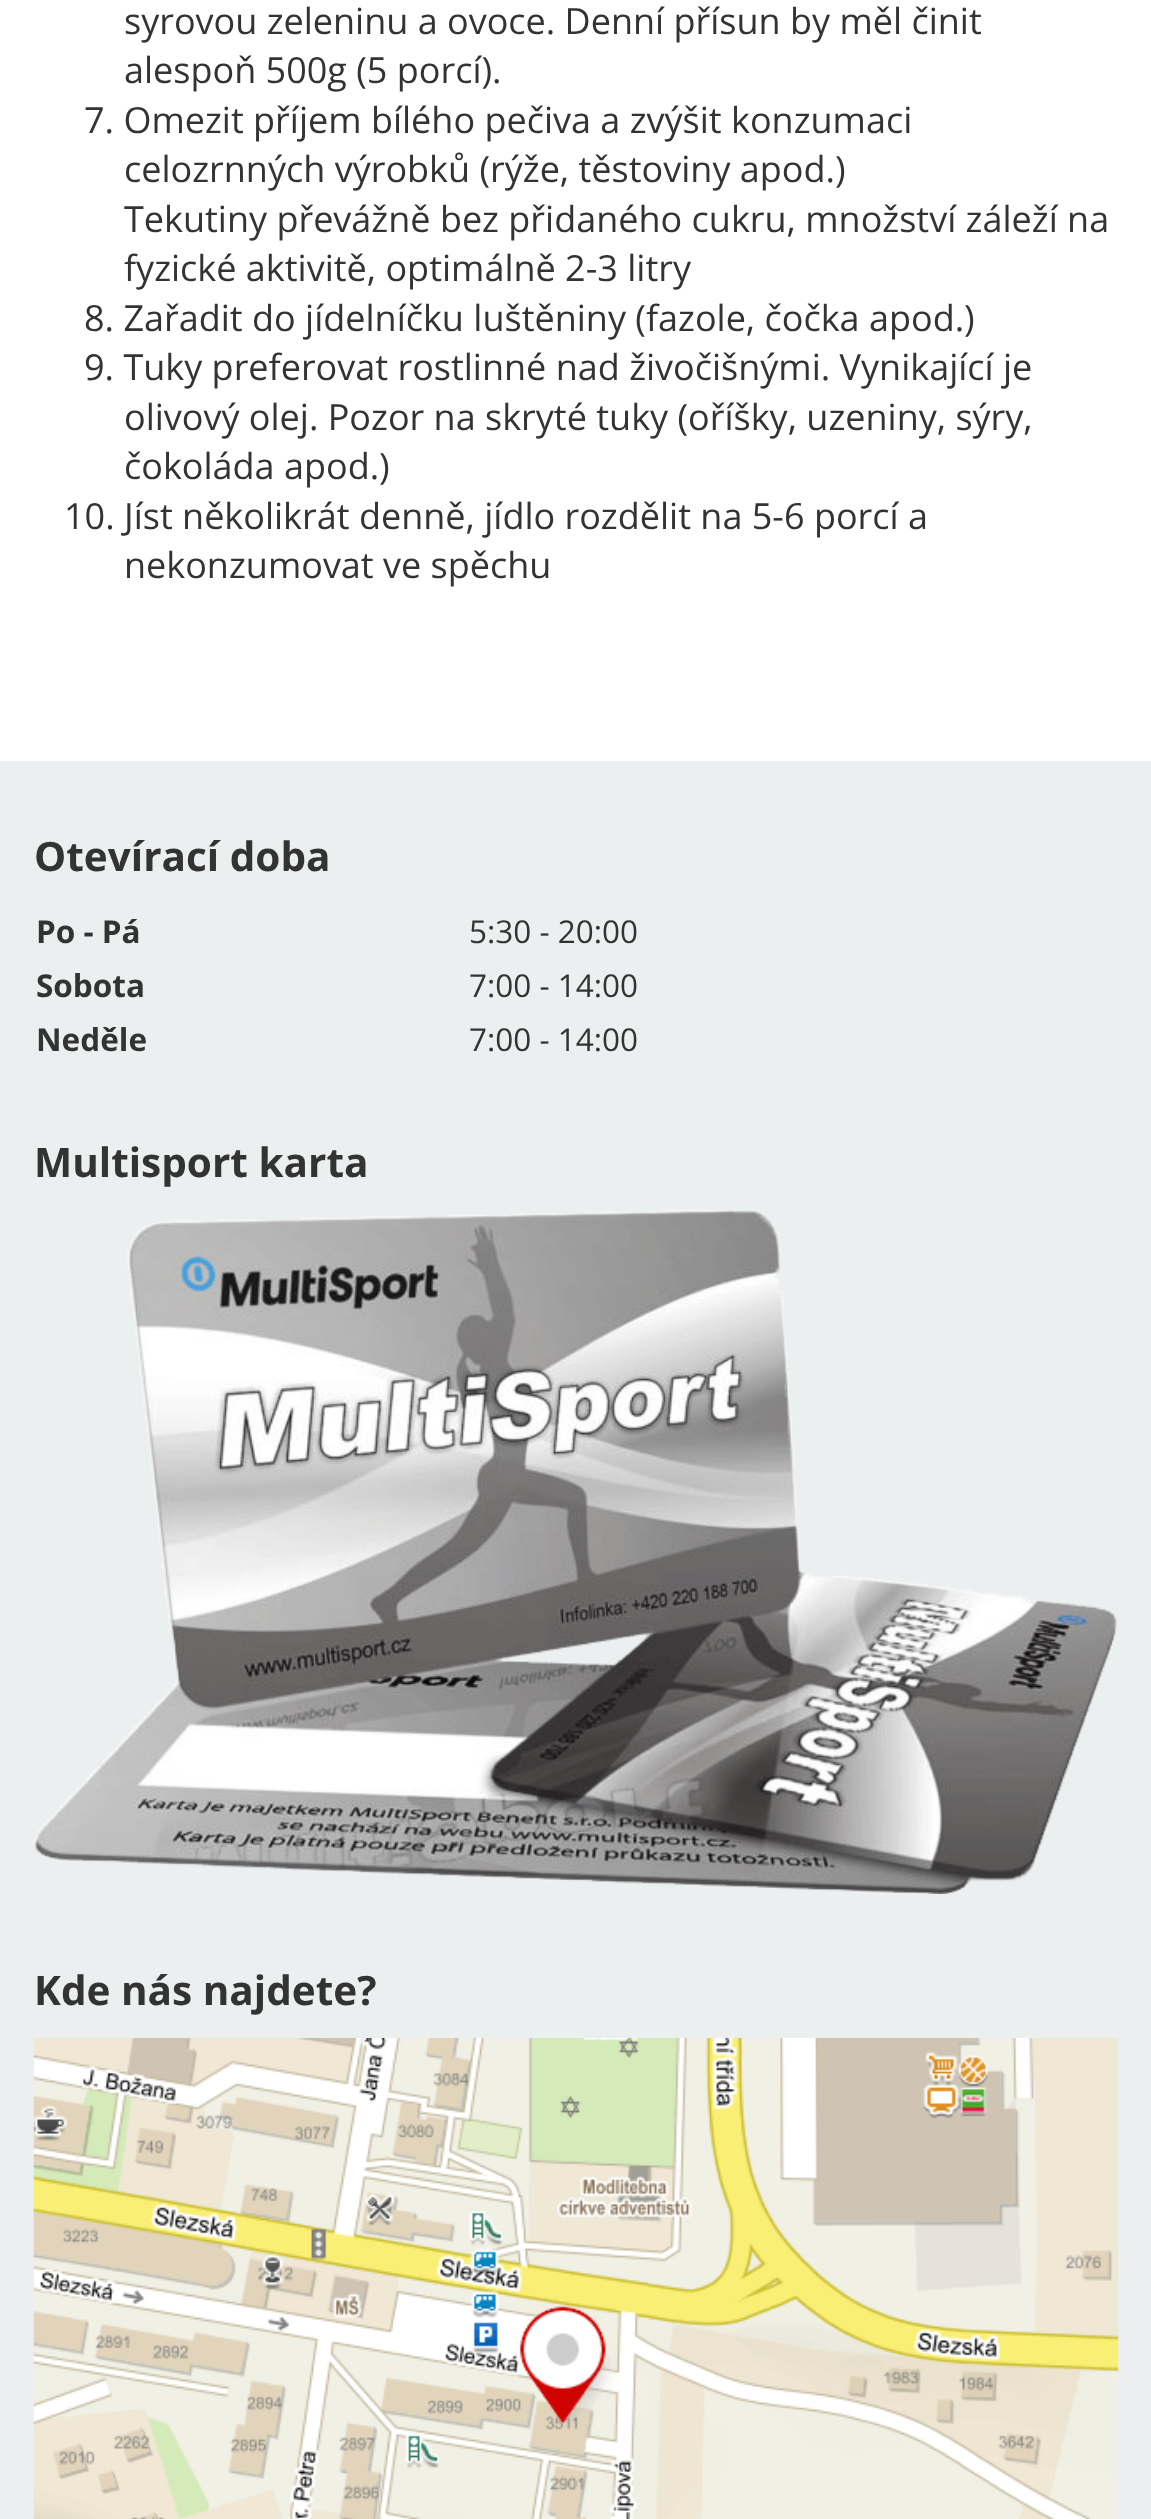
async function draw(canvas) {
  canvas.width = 1151
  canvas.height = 2519
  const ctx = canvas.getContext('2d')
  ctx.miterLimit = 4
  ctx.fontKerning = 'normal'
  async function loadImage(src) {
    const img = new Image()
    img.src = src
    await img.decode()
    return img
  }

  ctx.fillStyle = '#fff'
  ctx.fillRect(0, 0, 1151, 2519)
  ctx.font = '36px Open Sans'
  ctx.fillStyle = '#333'
  ctx.fillText('syrovou zeleninu a ovoce. Denní přísun by měl činit', 124, 34)
  ctx.fillText('alespoň 500g (5 porcí).', 124, 83)
  ctx.fillText('7. Omezit příjem bílého pečiva a zvýšit konzumaci', 84, 133)
  ctx.fillText('celozrnných výrobků (rýže, těstoviny apod.)', 124, 182)
  ctx.fillText('Tekutiny převážně bez přidaného cukru, množství záleží na', 124, 232)
  ctx.fillText('fyzické aktivitě, optimálně 2-3 litry', 124, 281)
  ctx.fillText('8. Zařadit do jídelníčku luštěniny (fazole, čočka apod.)', 84, 331)
  ctx.fillText('9. Tuky preferovat rostlinné nad živočišnými. Vynikající je', 84, 380)
  ctx.fillText('olivový olej. Pozor na skryté tuky (oříšky, uzeniny, sýry,', 124, 430)
  ctx.fillText('čokoláda apod.)', 124, 479)
  ctx.fillText('10. Jíst několikrát denně, jídlo rozdělit na 5-6 porcí a', 64, 529)
  ctx.fillText('nekonzumovat ve spěchu', 124, 578)
  ctx.fillStyle = '#eceff0'
  ctx.fillRect(0, 761, 1151, 1758)
  ctx.font = 'bold 40.5px Open Sans'
  ctx.fillStyle = '#333'
  ctx.fillText('Otevírací doba', 34, 871)
  ctx.font = 'bold 31.5px Open Sans'
  ctx.fillText('Po - Pá', 36, 943)
  ctx.font = '31.5px Open Sans'
  ctx.fillText('5:30 - 20:00', 469, 943)
  ctx.font = 'bold 31.5px Open Sans'
  ctx.fillText('Sobota', 36, 997)
  ctx.font = '31.5px Open Sans'
  ctx.fillText('7:00 - 14:00', 469, 997)
  ctx.font = 'bold 31.5px Open Sans'
  ctx.fillText('Neděle', 36, 1051)
  ctx.font = '31.5px Open Sans'
  ctx.fillText('7:00 - 14:00', 469, 1051)
  ctx.font = 'bold 40.5px Open Sans'
  ctx.fillText('Multisport karta', 34, 1177)
  ctx.drawImage(await loadImage('image0.png'), 34, 1210, 1083, 684)
  ctx.fillText('Kde nás najdete?', 34, 2005)
  ctx.drawImage(await loadImage('image1.png'), 33, 2038, 1086, 481)
}

draw(document.querySelector('canvas'))
